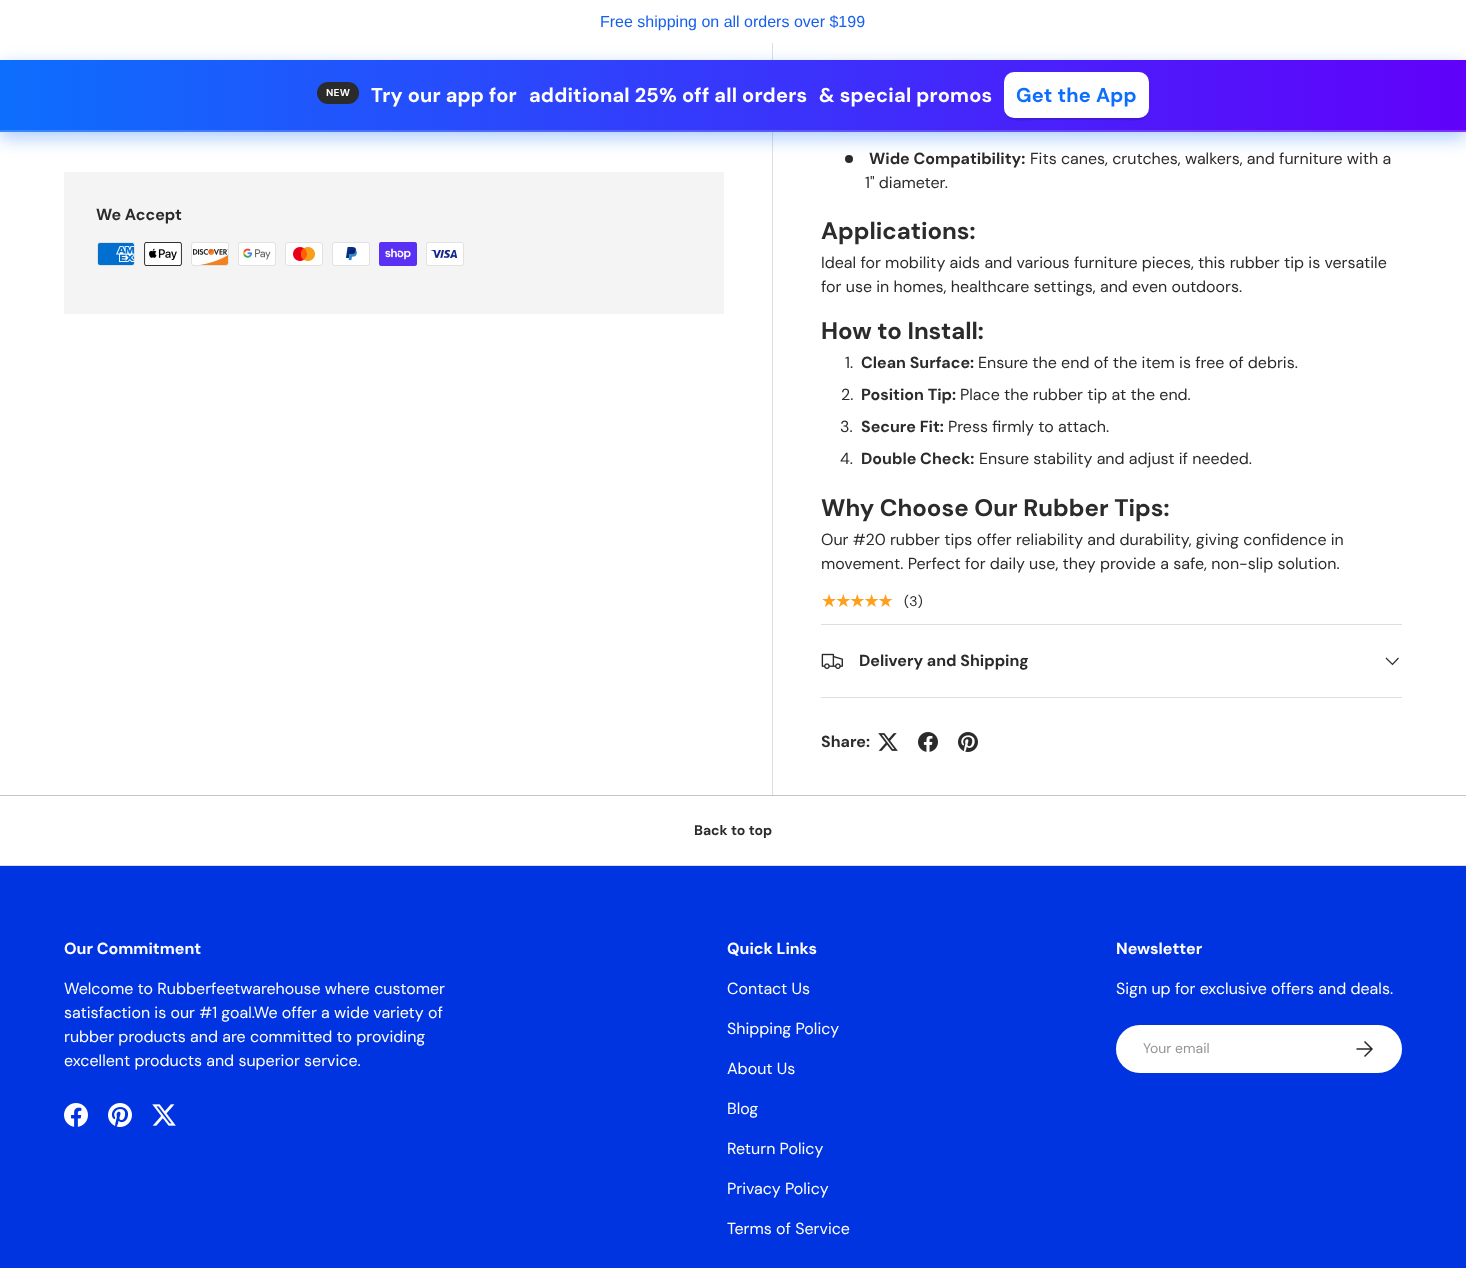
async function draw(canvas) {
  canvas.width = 1466
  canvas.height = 1268
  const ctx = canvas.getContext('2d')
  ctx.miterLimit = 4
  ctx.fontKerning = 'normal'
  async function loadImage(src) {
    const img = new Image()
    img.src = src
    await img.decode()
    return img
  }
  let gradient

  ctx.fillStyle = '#fff'
  ctx.fillRect(0, 0, 1466, 1268)
  ctx.font = '16px Liberation Sans'
  ctx.fillStyle = '#165fee'
  ctx.fillText('Free shipping on all orders over $199', 600, 27)
  ctx.fillStyle = '#dfdfdf'
  ctx.fillRect(772, 43, 1, 753)
  ctx.fillStyle = '#2a2b2a'
  ctx.beginPath()
  ctx.arc(849, 159, 4, 0, 2 * Math.PI)
  ctx.fill()
  ctx.fillStyle = '#0d6efd59'
  ctx.filter = 'blur(9px)'
  ctx.beginPath()
  ctx.rect(0, 66, 1466, 72)
  ctx.fill()
  ctx.filter = 'none'
  gradient = ctx.createLinearGradient(0, 95, 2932, 95)
  gradient.addColorStop(0, '#0d6efd')
  gradient.addColorStop(0.5, '#6101fa')
  gradient.addColorStop(1, '#0d6efd')
  ctx.fillStyle = gradient
  ctx.fillRect(0, 60, 1466, 72)
  ctx.fillStyle = '#ffffff2e'
  ctx.fillRect(0, 130, 1466, 2)
  ctx.fillStyle = '#2a2b2a'
  ctx.beginPath()
  ctx.roundRect(317, 82, 42, 22, 11)
  ctx.fill()
  ctx.letterSpacing = '0.2px'
  ctx.font = 'bold 10px "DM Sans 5"'
  ctx.fillStyle = '#fff'
  ctx.fillText('NEW', 326, 96)
  ctx.font = 'bold 20px "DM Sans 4"'
  ctx.fillText('Try our app for', 371, 102)
  ctx.fillText('additional 25% off all orders', 529, 102)
  ctx.fillText('& special promos', 819, 102)
  ctx.fillStyle = '#0000001f'
  ctx.beginPath()
  ctx.moveTo(1004, 108)
  ctx.bezierCurveTo(1004, 125, 1023, 120, 1035, 120)
  ctx.lineTo(1118, 120)
  ctx.bezierCurveTo(1130, 120, 1149, 125, 1149, 108)
  ctx.bezierCurveTo(1149, 114, 1145, 118, 1139, 118)
  ctx.lineTo(1014, 118)
  ctx.bezierCurveTo(1008, 118, 1004, 114, 1004, 108)
  ctx.closePath()
  ctx.fill()
  ctx.fillStyle = '#fff'
  ctx.beginPath()
  ctx.roundRect(1004, 72, 145, 46, 10)
  ctx.fill()
  ctx.fillStyle = '#0d6efd'
  ctx.fillText('Get the App', 1016, 102)
  ctx.fillStyle = '#f4f4f4'
  ctx.fillRect(64, 172, 660, 142)
  ctx.letterSpacing = '0px'
  ctx.font = 'bold 16px DM Sans'
  ctx.fillStyle = '#2a2b2a'
  ctx.fillText('We Accept', 96, 220)
  ctx.drawImage(await loadImage('image0.png'), 97, 242, 38, 24)
  ctx.drawImage(await loadImage('image1.png'), 144, 242, 38, 24)
  ctx.drawImage(await loadImage('image2.png'), 191, 242, 38, 24)
  ctx.drawImage(await loadImage('image3.png'), 238, 242, 38, 24)
  ctx.drawImage(await loadImage('image4.png'), 285, 242, 38, 24)
  ctx.drawImage(await loadImage('image5.png'), 332, 242, 38, 24)
  ctx.drawImage(await loadImage('image6.png'), 379, 242, 38, 24)
  ctx.drawImage(await loadImage('image7.png'), 426, 242, 38, 24)
  ctx.fillText('Wide Compatibility:', 869, 164)
  ctx.font = '16px "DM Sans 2"'
  ctx.fillText('Fits canes, crutches, walkers, and furniture with a', 1030, 164)
  ctx.fillText('1" diameter.', 865, 188)
  ctx.font = 'bold 24px "DM Sans 2"'
  ctx.fillText('Applications:', 821, 239)
  ctx.font = '16px "DM Sans 2"'
  ctx.fillText('Ideal for mobility aids and various furniture pieces, this rubber tip is versatile', 821, 268)
  ctx.fillText('for use in homes, healthcare settings, and even outdoors.', 821, 292)
  ctx.font = 'bold 24px "DM Sans 2"'
  ctx.fillText('How to Install:', 821, 339)
  ctx.font = '16px "DM Sans 2"'
  ctx.fillText('1.', 845, 368)
  ctx.font = 'bold 16px DM Sans'
  ctx.fillText('Clean Surface:', 861, 368)
  ctx.font = '16px "DM Sans 2"'
  ctx.fillText('Ensure the end of the item is free of debris.', 978, 368)
  ctx.fillText('2.', 841, 400)
  ctx.font = 'bold 16px DM Sans'
  ctx.fillText('Position Tip:', 861, 400)
  ctx.font = '16px "DM Sans 2"'
  ctx.fillText('Place the rubber tip at the end.', 960, 400)
  ctx.fillText('3.', 840, 432)
  ctx.font = 'bold 16px DM Sans'
  ctx.fillText('Secure Fit:', 861, 432)
  ctx.font = '16px "DM Sans 2"'
  ctx.fillText('Press firmly to attach.', 948, 432)
  ctx.fillText('4.', 840, 464)
  ctx.font = 'bold 16px DM Sans'
  ctx.fillText('Double Check:', 861, 464)
  ctx.font = '16px "DM Sans 2"'
  ctx.fillText('Ensure stability and adjust if needed.', 979, 464)
  ctx.font = 'bold 24px "DM Sans 2"'
  ctx.fillText('Why Choose Our Rubber Tips:', 821, 516)
  ctx.font = '16px "DM Sans 2"'
  ctx.fillText('Our #20 rubber tips offer reliability and durability, giving confidence in', 821, 545)
  ctx.fillText('movement. Perfect for daily use, they provide a safe, non-slip solution.', 821, 569)
  ctx.letterSpacing = '-2px'
  ctx.font = '18px DejaVu Sans'
  gradient = ctx.createLinearGradient(821, 601, 894, 601)
  gradient.addColorStop(1, '#ff9f1c')
  gradient.addColorStop(1, '#ffecd2')
  ctx.fillStyle = gradient
  ctx.fillText('★★★★★', 821, 607)
  ctx.letterSpacing = '0px'
  ctx.font = '14px DM Sans'
  ctx.fillStyle = '#2a2b2a'
  ctx.fillText('(3)', 904, 606)
  ctx.fillStyle = '#dfdfdf'
  ctx.fillRect(821, 624, 581, 1)
  ctx.fillRect(821, 697, 581, 1)
  ctx.drawImage(await loadImage('image8.png'), 821, 653, 22, 16)
  ctx.font = 'bold 16px DM Sans'
  ctx.fillStyle = '#2a2b2a'
  ctx.fillText('Delivery and Shipping', 859, 666)
  ctx.beginPath()
  ctx.moveTo(1398.5, 658)
  ctx.lineTo(1392.5, 664.5)
  ctx.lineTo(1386, 658)
  ctx.strokeStyle = '#2a2b2a'
  ctx.lineWidth = 1.2
  ctx.stroke()
  ctx.fillText('Share:', 821, 747)
  ctx.drawImage(await loadImage('image9.png'), 878, 733, 20, 18)
  ctx.drawImage(await loadImage('image10.png'), 918, 732, 20, 20)
  ctx.drawImage(await loadImage('image11.png'), 958, 732, 20, 20)
  ctx.fillStyle = '#c4c4c4'
  ctx.fillRect(0, 795, 1466, 1)
  ctx.fillStyle = '#dfdfdf'
  ctx.fillRect(0, 865, 1466, 1)
  ctx.font = 'bold 14px "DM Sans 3"'
  ctx.fillStyle = '#2a2b2a'
  ctx.fillText('Back to top', 694, 835)
  ctx.fillStyle = '#0034e0'
  ctx.fillRect(0, 866, 1466, 402)
  ctx.font = 'bold 16px DM Sans'
  ctx.fillStyle = '#fff'
  ctx.fillText('Our Commitment', 64, 954)
  ctx.font = '16px "DM Sans 2"'
  ctx.fillText('Welcome to Rubberfeetwarehouse where customer', 64, 994)
  ctx.fillText('satisfaction is our #1 goal.We offer a wide variety of', 64, 1018)
  ctx.fillText('rubber products and are committed to providing', 64, 1042)
  ctx.fillText('excellent products and superior service.', 64, 1066)
  ctx.drawImage(await loadImage('image12.png'), 64, 1103, 24, 24)
  ctx.drawImage(await loadImage('image13.png'), 108, 1103, 24, 24)
  ctx.drawImage(await loadImage('image14.png'), 152, 1104, 24, 22)
  ctx.font = 'bold 16px DM Sans'
  ctx.fillText('Quick Links', 727, 954)
  ctx.font = '16px "DM Sans 2"'
  ctx.fillText('Contact Us', 727, 994)
  ctx.fillText('Shipping Policy', 727, 1034)
  ctx.fillText('About Us', 727, 1074)
  ctx.fillText('Blog', 727, 1114)
  ctx.fillText('Return Policy', 727, 1154)
  ctx.fillText('Privacy Policy', 727, 1194)
  ctx.fillText('Terms of Service', 727, 1234)
  ctx.font = 'bold 16px DM Sans'
  ctx.fillText('Newsletter', 1116, 954)
  ctx.font = '16px "DM Sans 2"'
  ctx.fillText('Sign up for exclusive offers and deals.', 1116, 994)
  ctx.beginPath()
  ctx.roundRect(1116, 1025, 286, 48, 24)
  ctx.fill()
  ctx.beginPath()
  ctx.roundRect(1117, 1026, 284, 46, 23)
  ctx.strokeStyle = '#ffffff33'
  ctx.lineWidth = 2
  ctx.stroke()
  ctx.font = '14px DM Sans'
  ctx.fillStyle = '#959595'
  ctx.fillText('Your email', 1143, 1053)
  ctx.beginPath()
  ctx.moveTo(1356.5, 1049)
  ctx.lineTo(1371.5, 1049)
  ctx.moveTo(1364.5, 1041.5)
  ctx.lineTo(1372, 1049)
  ctx.lineTo(1364.5, 1056.5)
  ctx.strokeStyle = '#2a2b2a'
  ctx.lineWidth = 1.5
  ctx.stroke()
}

draw(document.querySelector('canvas'))
